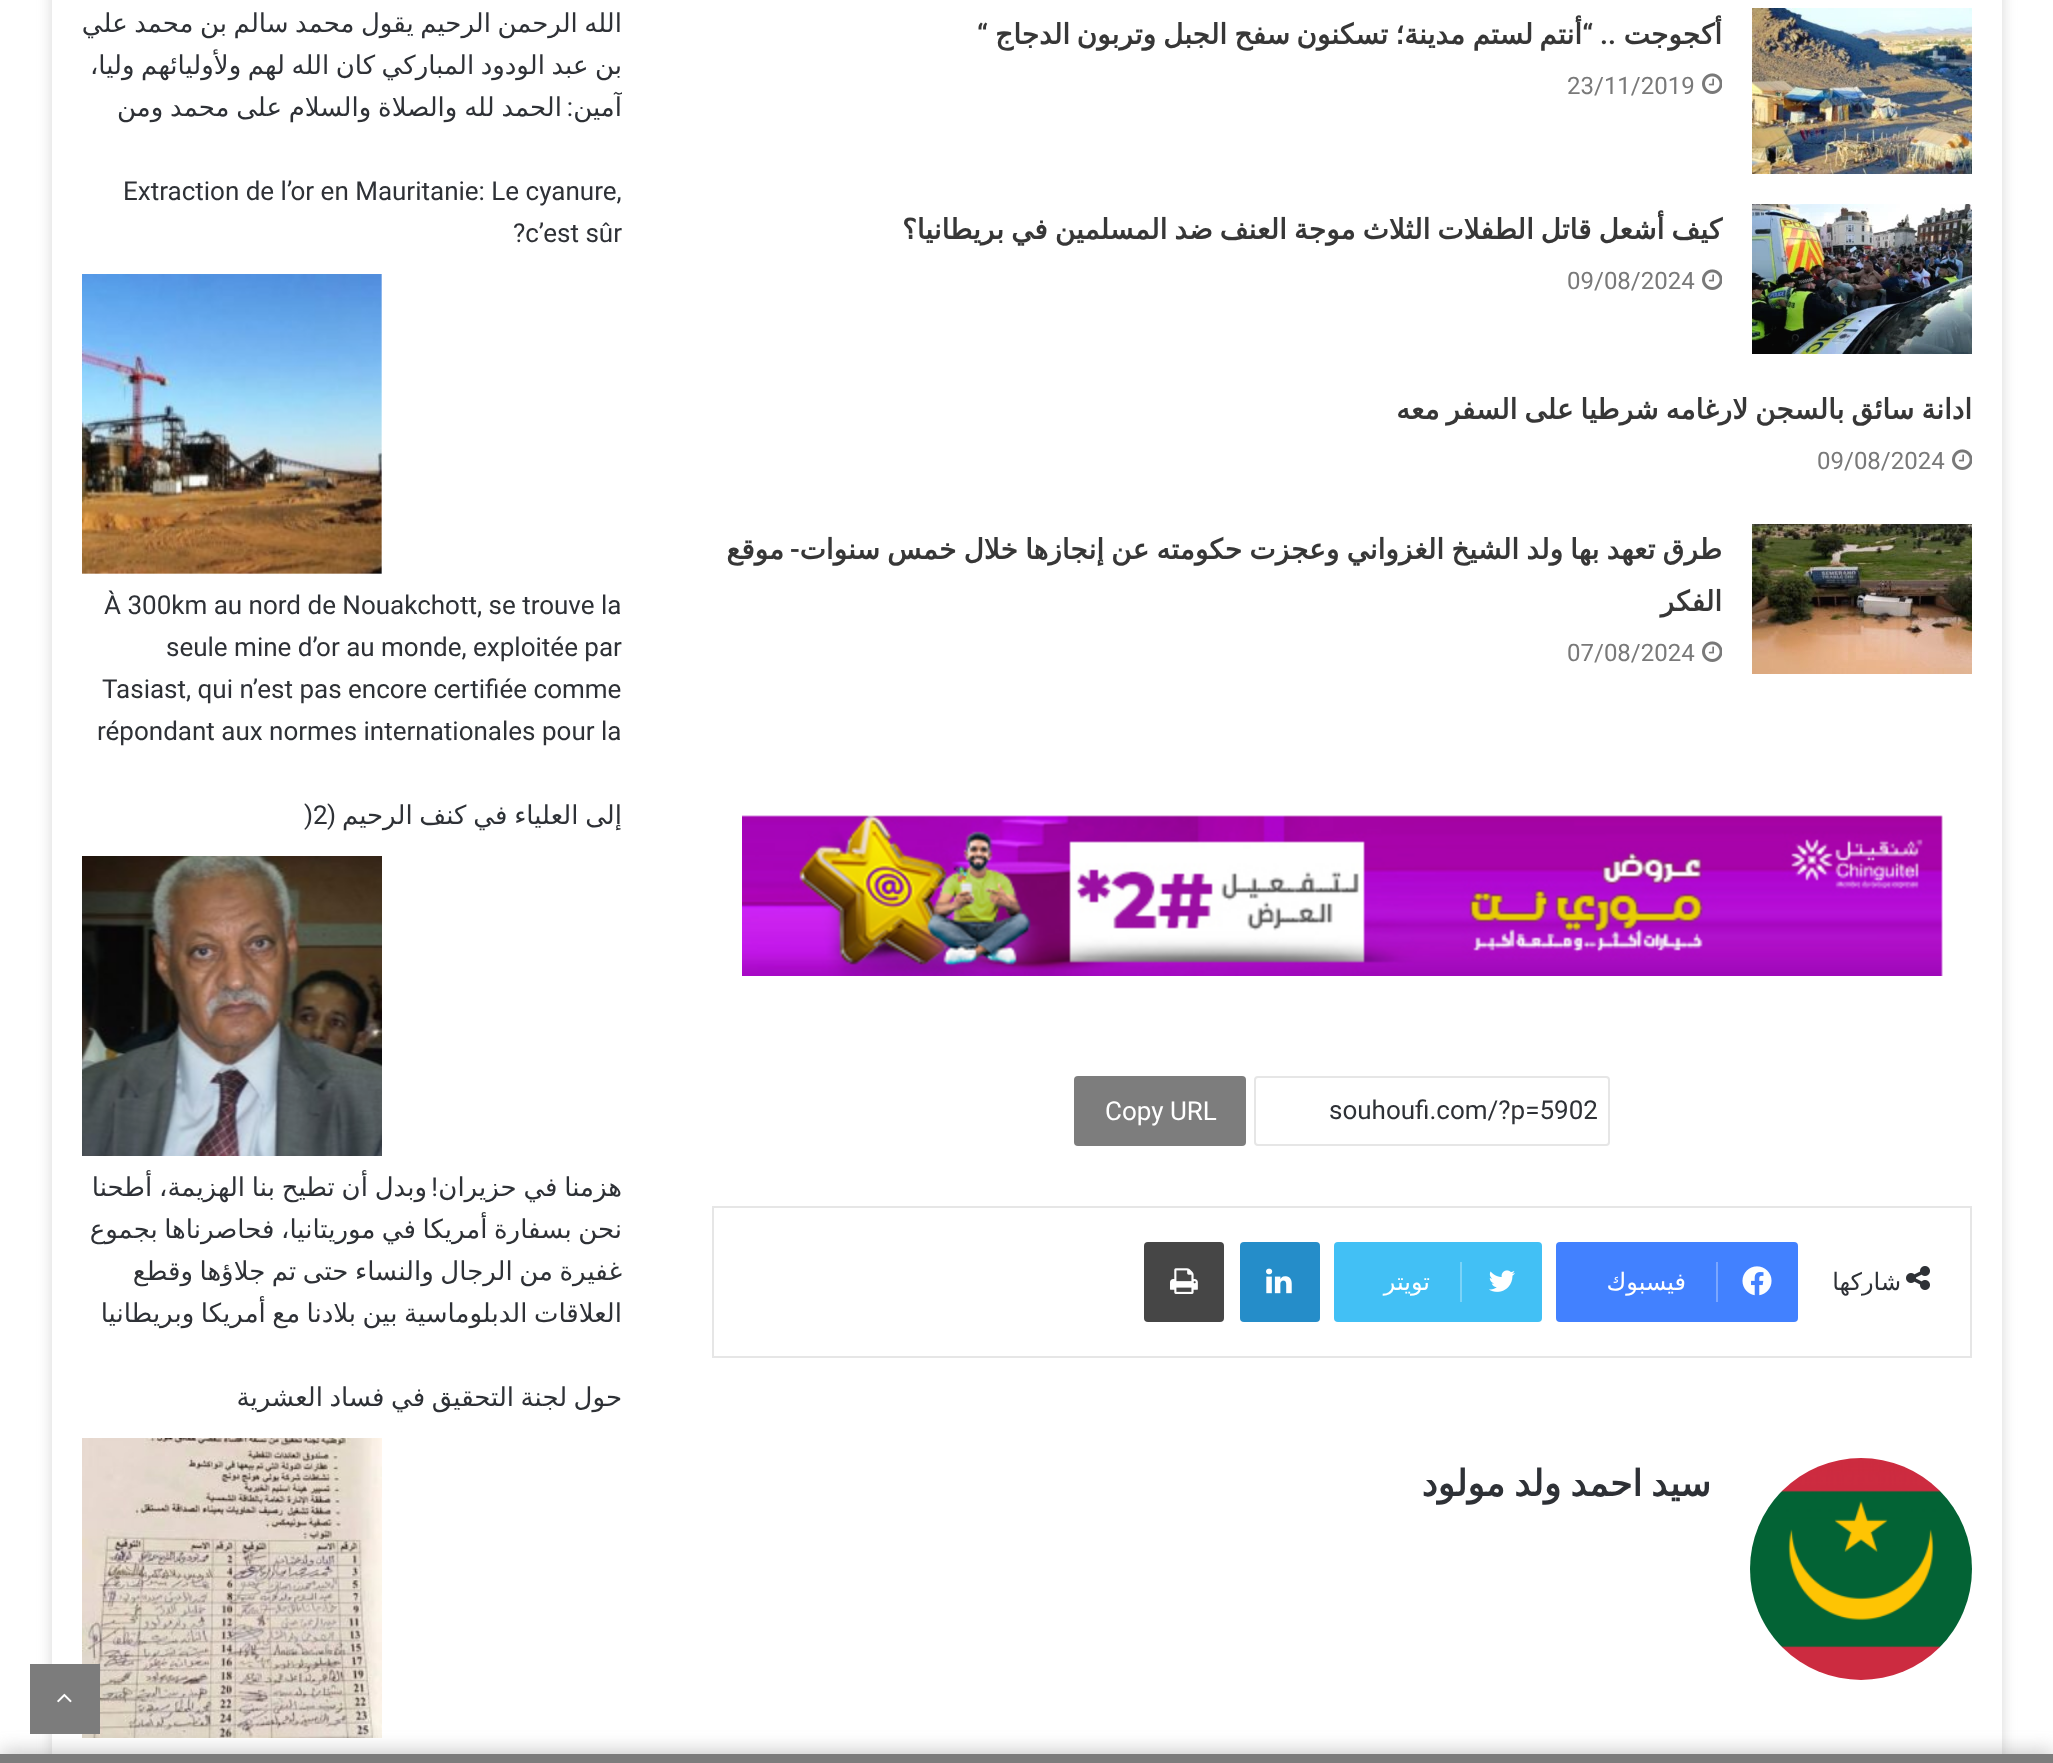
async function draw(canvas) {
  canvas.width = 2053
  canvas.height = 1763
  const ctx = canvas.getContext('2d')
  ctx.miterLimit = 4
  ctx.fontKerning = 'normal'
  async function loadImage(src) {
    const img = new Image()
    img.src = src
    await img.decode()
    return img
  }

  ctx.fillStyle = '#fff'
  ctx.fillRect(0, 0, 2053, 1763)
  ctx.save()
  ctx.beginPath()
  ctx.moveTo(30, 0)
  ctx.lineTo(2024, 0)
  ctx.lineTo(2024, 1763)
  ctx.lineTo(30, 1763)
  ctx.closePath()
  ctx.moveTo(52, -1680)
  ctx.lineTo(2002, -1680)
  ctx.lineTo(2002, 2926)
  ctx.lineTo(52, 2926)
  ctx.closePath()
  ctx.clip('evenodd')
  ctx.fillStyle = '#ababab80'
  ctx.filter = 'blur(7px)'
  ctx.beginPath()
  ctx.rect(52, -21, 1950, 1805)
  ctx.fill()
  ctx.filter = 'none'
  ctx.restore()
  ctx.drawImage(await loadImage('image0.png'), 1752, 8, 220, 166)
  ctx.direction = 'rtl'
  ctx.font = 'bold 28px DejaVu Sans'
  ctx.fillStyle = '#373737'
  ctx.fillText('أكجوجت', 1722, 44)
  ctx.font = '600 28px Roboto'
  ctx.fillText('.. “', 1616, 44)
  ctx.font = 'bold 28px DejaVu Sans'
  ctx.fillText('أنتم', 1582, 44)
  ctx.fillText('لستم', 1533, 44)
  ctx.fillText('مدينة؛', 1465, 44)
  ctx.fillText('تسكنون', 1388, 44)
  ctx.fillText('سفح', 1290, 44)
  ctx.fillText('الجبل', 1227, 44)
  ctx.fillText('وتربون', 1156, 44)
  ctx.fillText('الدجاج', 1070, 44)
  ctx.font = '600 28px Roboto'
  ctx.fillText('“', 988, 44)
  ctx.drawImage(await loadImage('image1.png'), 1702, 73, 20, 21)
  ctx.direction = 'ltr'
  ctx.font = '24px Roboto'
  ctx.fillStyle = '#797979'
  ctx.fillText('23/11/2019', 1567, 94)
  ctx.drawImage(await loadImage('image2.png'), 1752, 204, 220, 150)
  ctx.wordSpacing = '-2px'
  ctx.direction = 'rtl'
  ctx.font = 'bold 28px DejaVu Sans'
  ctx.fillStyle = '#373737'
  ctx.fillText('كيف أشعل قاتل الطفلات الثلاث موجة العنف ضد المسلمين في بريطانيا؟', 1722, 239)
  ctx.drawImage(await loadImage('image1.png'), 1702, 269, 20, 21)
  ctx.wordSpacing = '0px'
  ctx.direction = 'ltr'
  ctx.font = '24px Roboto'
  ctx.fillStyle = '#797979'
  ctx.fillText('09/08/2024', 1567, 289)
  ctx.wordSpacing = '-2px'
  ctx.direction = 'rtl'
  ctx.font = 'bold 28px DejaVu Sans'
  ctx.fillStyle = '#373737'
  ctx.fillText('ادانة سائق بالسجن لارغامه شرطيا على السفر معه', 1972, 419)
  ctx.drawImage(await loadImage('image1.png'), 1952, 449, 20, 21)
  ctx.wordSpacing = '0px'
  ctx.direction = 'ltr'
  ctx.font = '24px Roboto'
  ctx.fillStyle = '#797979'
  ctx.fillText('09/08/2024', 1817, 469)
  ctx.drawImage(await loadImage('image3.png'), 1752, 524, 220, 150)
  ctx.wordSpacing = '-1.75px'
  ctx.direction = 'rtl'
  ctx.font = 'bold 28px DejaVu Sans'
  ctx.fillStyle = '#373737'
  ctx.fillText('طرق تعهد بها ولد الشيخ الغزواني وعجزت حكومته عن إنجازها خلال خمس سنوات', 1722, 559)
  ctx.wordSpacing = '0px'
  ctx.font = '600 28px Roboto'
  ctx.fillText('-', 800, 559)
  ctx.font = 'bold 28px DejaVu Sans'
  ctx.fillText('موقع', 784, 559)
  ctx.fillText('الفكر', 1722, 611)
  ctx.drawImage(await loadImage('image1.png'), 1702, 641, 20, 21)
  ctx.direction = 'ltr'
  ctx.font = '24px Roboto'
  ctx.fillStyle = '#797979'
  ctx.fillText('07/08/2024', 1567, 661)
  ctx.drawImage(await loadImage('image4.png'), 742, 815, 1201, 161)
  ctx.beginPath()
  ctx.roundRect(1255, 1077, 354, 68, 3)
  ctx.strokeStyle = '#e6e6e6'
  ctx.lineWidth = 2
  ctx.stroke()
  ctx.font = '26px Roboto'
  ctx.fillStyle = '#2e3136'
  ctx.fillText('souhoufi.com/?p=5902', 1329, 1119)
  ctx.fillStyle = '#7d7d7d'
  ctx.beginPath()
  ctx.roundRect(1074, 1076, 172, 70, 4)
  ctx.fill()
  ctx.fillStyle = '#fff'
  ctx.fillText('Copy URL', 1105, 1120)
  ctx.strokeRect(713, 1207, 1258, 150)
  ctx.drawImage(await loadImage('image5.png'), 1906, 1266, 24, 24)
  ctx.direction = 'rtl'
  ctx.font = '24px DejaVu Sans'
  ctx.fillStyle = '#2e3136'
  ctx.fillText('شاركها', 1901, 1290)
  ctx.fillStyle = '#4281ff'
  ctx.beginPath()
  ctx.roundRect(1556, 1242, 242, 80, 4)
  ctx.fill()
  ctx.drawImage(await loadImage('image6.png'), 1742, 1266, 30, 30)
  ctx.fillStyle = '#7ba7ff'
  ctx.fillRect(1716, 1262, 2, 40)
  ctx.fillStyle = '#fff'
  ctx.fillText('فيسبوك', 1686, 1290)
  ctx.fillStyle = '#42c0f5'
  ctx.beginPath()
  ctx.roundRect(1334, 1242, 208, 80, 4)
  ctx.fill()
  ctx.drawImage(await loadImage('image7.png'), 1489, 1270, 26, 22)
  ctx.fillStyle = '#7bd3f8'
  ctx.fillRect(1460, 1262, 2, 40)
  ctx.fillStyle = '#fff'
  ctx.fillText('تويتر', 1430, 1290)
  ctx.fillStyle = '#258dc9'
  ctx.beginPath()
  ctx.roundRect(1240, 1242, 80, 80, 4)
  ctx.fill()
  ctx.drawImage(await loadImage('image8.png'), 1266, 1268, 26, 26)
  ctx.fillStyle = '#464646'
  ctx.beginPath()
  ctx.roundRect(1144, 1242, 80, 80, 4)
  ctx.fill()
  ctx.drawImage(await loadImage('image9.png'), 1170, 1268, 28, 26)
  ctx.drawImage(await loadImage('image10.png'), 1750, 1458, 222, 222)
  ctx.wordSpacing = '-2.5px'
  ctx.font = 'bold 36px DejaVu Sans'
  ctx.fillStyle = '#2e3136'
  ctx.fillText('سيد احمد ولد مولود', 1711, 1496)
  ctx.save()
  ctx.beginPath()
  ctx.rect(82, 0, 540, 128)
  ctx.clip()
  ctx.wordSpacing = '-1.75px'
  ctx.font = '26px DejaVu Sans'
  ctx.fillText('الله الرحمن الرحيم يقول محمد سالم بن محمد علي', 622, 32)
  ctx.fillText('بن عبد الودود المباركي كان الله لهم ولأوليائهم وليا،', 622, 74)
  ctx.wordSpacing = '0px'
  ctx.fillText('آمين', 622, 116)
  ctx.restore()
  ctx.wordSpacing = '-1.5px'
  ctx.font = '26px DejaVu Sans'
  ctx.fillText('الحمد لله والصلاة والسلام على محمد ومن', 562, 116)
  ctx.wordSpacing = '0px'
  ctx.font = '26px Roboto'
  ctx.fillText(':', 573, 116)
  ctx.direction = 'ltr'
  ctx.fillText('Extraction de l’or en Mauritanie: Le cyanure,', 123, 200)
  ctx.fillText('?c’est sûr', 513, 242)
  ctx.drawImage(await loadImage('image11.png'), 82, 274, 300, 300)
  ctx.fillText('À 300km au nord de Nouakchott, se trouve la', 104, 614)
  ctx.fillText('seule mine d’or au monde, exploitée par', 166, 656)
  ctx.fillText('Tasiast, qui n’est pas encore certifiée comme', 102, 698)
  ctx.fillText('répondant aux normes internationales pour la', 97, 740)
  ctx.save()
  ctx.beginPath()
  ctx.rect(82, 794, 540, 42)
  ctx.clip()
  ctx.wordSpacing = '-1.5px'
  ctx.direction = 'rtl'
  ctx.font = '26px DejaVu Sans'
  ctx.fillText('إلى العلياء في كنف الرحيم', 622, 824)
  ctx.restore()
  ctx.direction = 'rtl'
  ctx.fillText('(', 336, 824)
  ctx.direction = 'ltr'
  ctx.fillText(')2', 304, 824)
  ctx.drawImage(await loadImage('image12.png'), 82, 856, 300, 300)
  ctx.save()
  ctx.beginPath()
  ctx.rect(82, 1166, 540, 168)
  ctx.clip()
  ctx.wordSpacing = '-1.5px'
  ctx.direction = 'rtl'
  ctx.font = '26px DejaVu Sans'
  ctx.fillText('هزمنا في حزيران', 622, 1196)
  ctx.restore()
  ctx.direction = 'rtl'
  ctx.fillText('!', 438, 1196)
  ctx.wordSpacing = '-1.5px'
  ctx.font = '26px DejaVu Sans'
  ctx.fillText('وبدل أن تطيح بنا الهزيمة، أطحنا', 427, 1196)
  ctx.save()
  ctx.beginPath()
  ctx.rect(82, 1166, 540, 168)
  ctx.clip()
  ctx.wordSpacing = '-1.75px'
  ctx.fillText('نحن بسفارة أمريكا في موريتانيا، فحاصرناها بجموع', 622, 1238)
  ctx.fillText('غفيرة من الرجال والنساء حتى تم جلاؤها وقطع', 622, 1280)
  ctx.fillText('العلاقات الدبلوماسية بين بلادنا مع أمريكا وبريطانيا', 622, 1322)
  ctx.restore()
  ctx.save()
  ctx.beginPath()
  ctx.rect(82, 1376, 540, 42)
  ctx.clip()
  ctx.wordSpacing = '-1.75px'
  ctx.fillText('حول لجنة التحقيق في فساد العشرية', 622, 1406)
  ctx.restore()
  ctx.drawImage(await loadImage('image13.png'), 82, 1438, 300, 300)
  ctx.fillStyle = '#7c7c7c'
  ctx.fillRect(30, 1664, 70, 70)
  ctx.drawImage(await loadImage('image14.png'), 57, 1693, 15, 10)
  ctx.fillStyle = '#7c7c7cb3'
  ctx.filter = 'blur(10px)'
  ctx.beginPath()
  ctx.rect(0, 1754, 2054, 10)
  ctx.fill()
  ctx.filter = 'none'
  ctx.fillStyle = '#7c7c7c'
  ctx.fillRect(0, 1754, 2053, 9)
}

draw(document.querySelector('canvas'))
